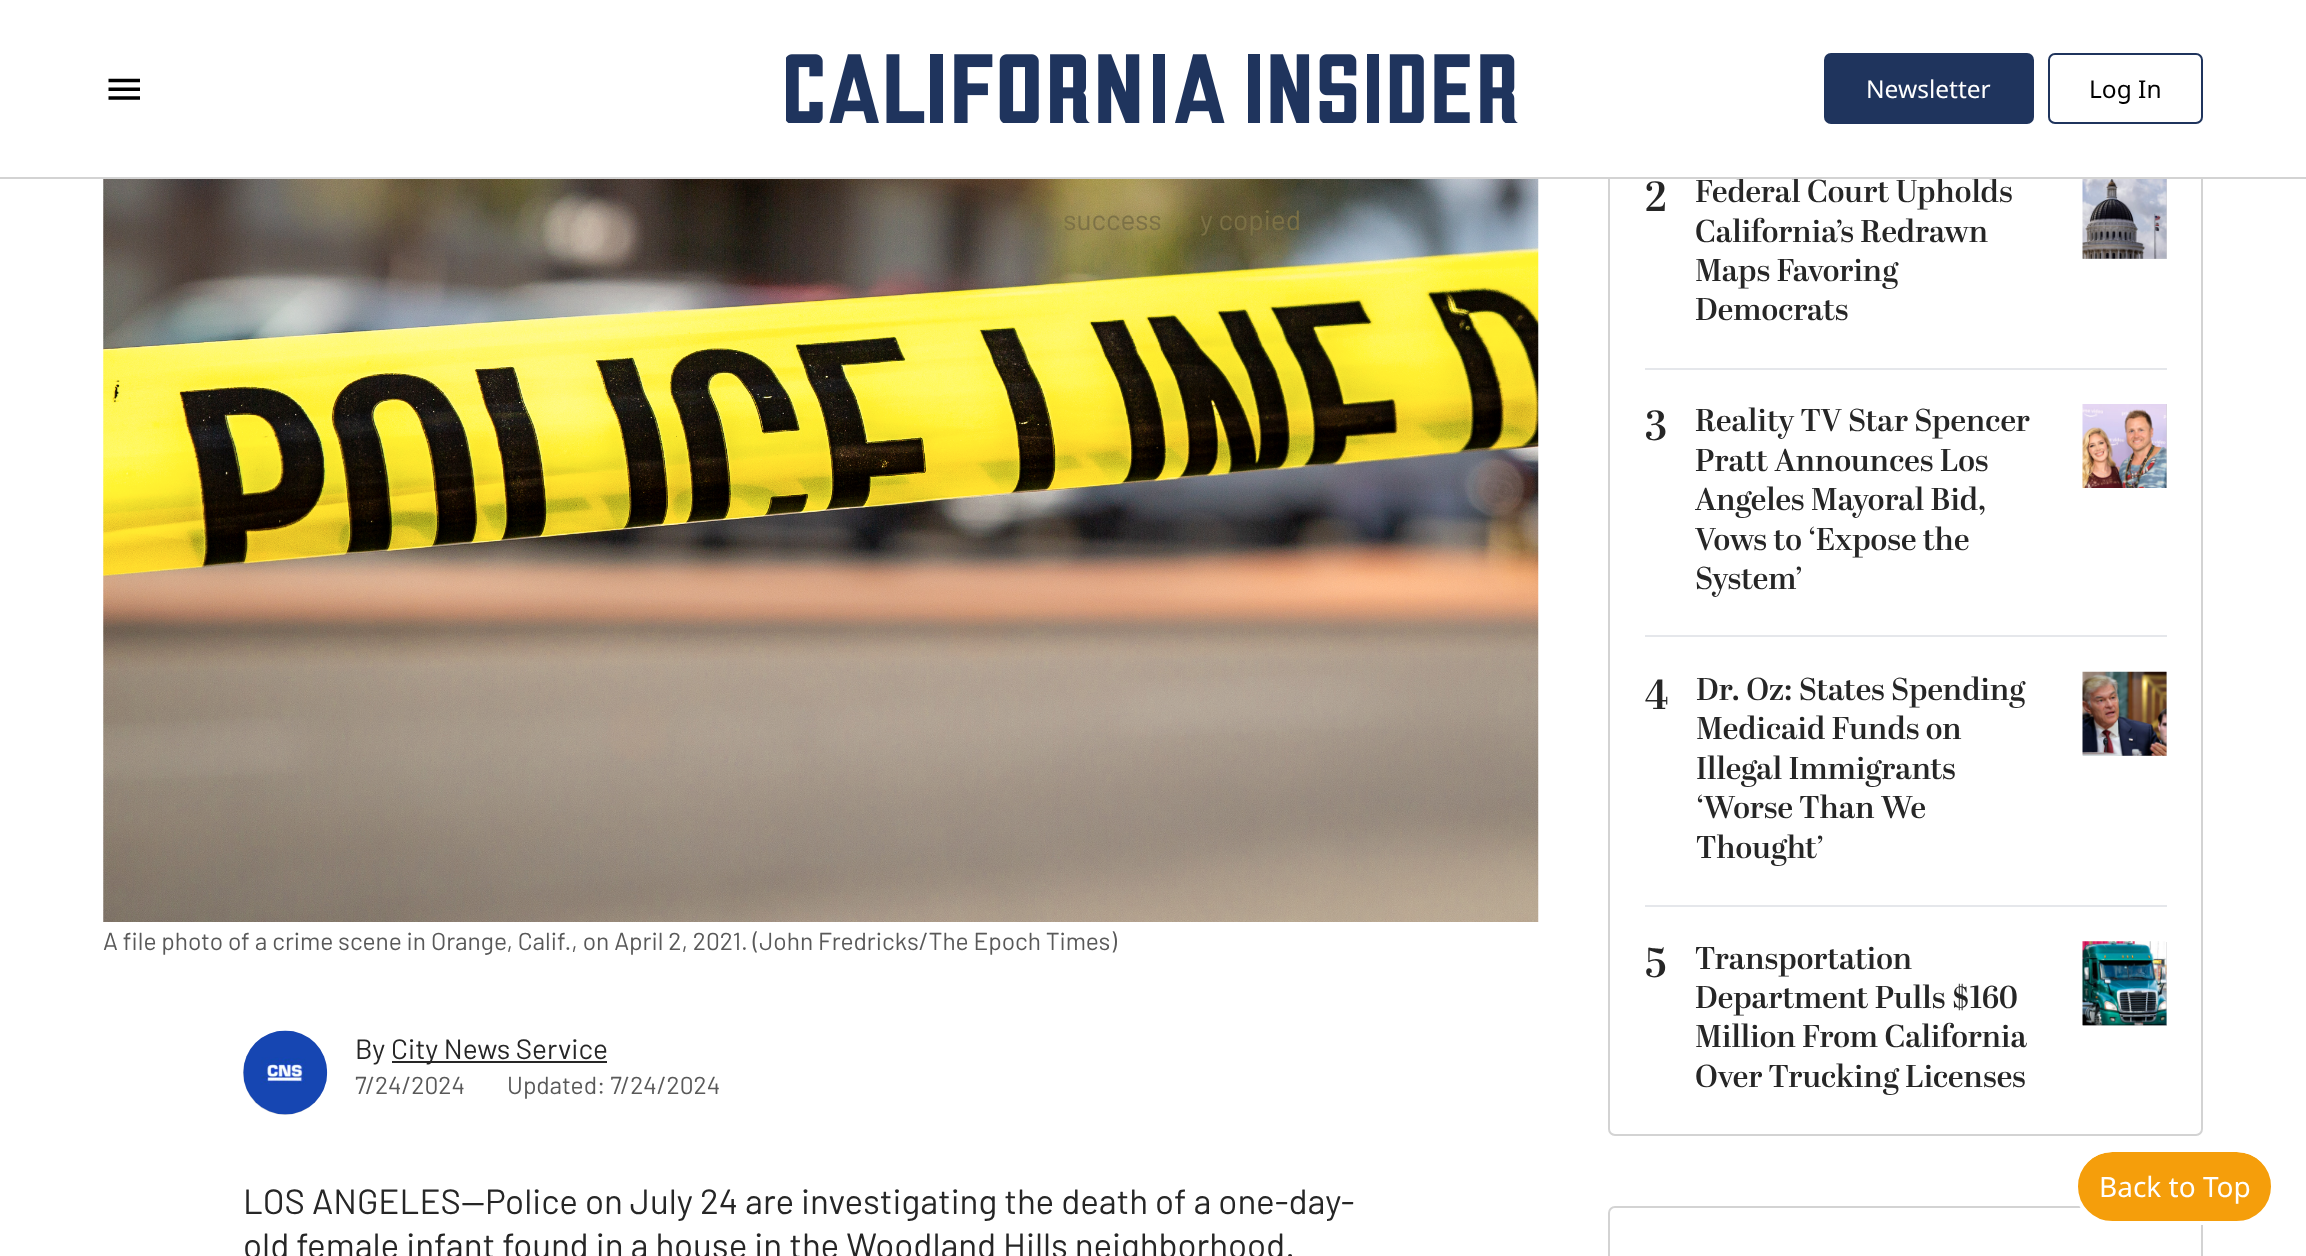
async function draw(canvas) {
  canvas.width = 2306
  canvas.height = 1256
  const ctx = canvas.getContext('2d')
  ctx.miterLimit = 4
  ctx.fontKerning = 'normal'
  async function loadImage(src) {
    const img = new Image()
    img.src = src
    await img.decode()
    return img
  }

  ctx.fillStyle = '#fff'
  ctx.fillRect(0, 0, 2306, 1256)
  ctx.beginPath()
  ctx.roundRect(1609, -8, 593, 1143, 6)
  ctx.strokeStyle = '#d3d3d3'
  ctx.lineWidth = 2
  ctx.stroke()
  ctx.fillRect(1608, 0, 595, 177)
  ctx.font = '600 31.5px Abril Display'
  ctx.fillStyle = '#262626'
  ctx.fillText('Federal Court Upholds', 1695, 202)
  ctx.fillStyle = '#d3d3d3'
  ctx.fillRect(0, 177, 2306, 2)
  ctx.drawImage(await loadImage('image0.png'), 108, 78, 32, 22)
  ctx.drawImage(await loadImage('image1.png'), 786, 54, 732, 69)
  ctx.fillStyle = '#1f345d'
  ctx.beginPath()
  ctx.roundRect(1824, 53, 210, 71, 7)
  ctx.fill()
  ctx.font = '24.5px Noto Sans'
  ctx.fillStyle = '#fff'
  ctx.fillText('Newsletter', 1866, 98)
  ctx.beginPath()
  ctx.roundRect(2049, 54, 153, 69, 6)
  ctx.strokeStyle = '#1f345d'
  ctx.stroke()
  ctx.fillStyle = '#000'
  ctx.fillText('Log In', 2089, 98)
  ctx.drawImage(await loadImage('image2.png'), 103, 179, 1436, 743)
  ctx.font = '28px Barlow'
  ctx.fillStyle = '#7c7146'
  ctx.fillText('success', 1063, 230)
  ctx.fillText('y copied', 1200, 230)
  ctx.font = '24.5px Barlow'
  ctx.fillStyle = '#595959'
  ctx.fillText('A file photo of a crime scene in Orange, Calif., on April 2, 2021. (John Fredricks/The Epoch Times)', 103, 950)
  ctx.fillStyle = '#d3d3d3'
  ctx.beginPath()
  ctx.arc(285, 1073, 42, 0, 2 * Math.PI)
  ctx.fill()
  ctx.drawImage(await loadImage('image3.png'), 243, 1030, 85, 85)
  ctx.font = '28px Barlow'
  ctx.fillStyle = '#262626'
  ctx.fillText('By', 355, 1059)
  ctx.fillRect(392, 1061, 215, 2)
  ctx.fillText('City News Service', 391, 1059)
  ctx.font = '24.5px Barlow'
  ctx.fillStyle = '#595959'
  ctx.fillText('7/24/2024', 355, 1094)
  ctx.fillText('Updated: 7/24/2024', 507, 1094)
  ctx.font = '35px Barlow'
  ctx.fillStyle = '#262626'
  ctx.fillText('LOS ANGELES—Police on July 24 are investigating the death of a one-day-', 243, 1214)
  ctx.fillText('old female infant found in a house in the Woodland Hills neighborhood.', 243, 1258)
  ctx.font = '600 42px Abril Display'
  ctx.fillText('2', 1645, 211)
  ctx.font = '600 31.5px Abril Display'
  ctx.fillText('California’s Redrawn', 1695, 242)
  ctx.fillText('Maps Favoring', 1695, 281)
  ctx.fillText('Democrats', 1695, 320)
  ctx.fillStyle = '#d3d3d3'
  ctx.fillRect(2083, 179, 84, 80)
  ctx.drawImage(await loadImage('image4.png'), 2082, 179, 85, 80)
  ctx.fillStyle = '#e5e7eb'
  ctx.fillRect(1645, 368, 522, 2)
  ctx.font = '600 42px Abril Display'
  ctx.fillStyle = '#262626'
  ctx.fillText('3', 1645, 440)
  ctx.font = '600 31.5px Abril Display'
  ctx.fillText('Reality TV Star Spencer', 1695, 431)
  ctx.fillText('Pratt Announces Los', 1695, 471)
  ctx.fillText('Angeles Mayoral Bid,', 1695, 510)
  ctx.fillText('Vows to ‘Expose the', 1695, 550)
  ctx.fillText('System’', 1695, 589)
  ctx.fillStyle = '#d3d3d3'
  ctx.fillRect(2166, 404, 1, 84)
  ctx.drawImage(await loadImage('image5.png'), 2082, 404, 85, 84)
  ctx.fillStyle = '#e5e7eb'
  ctx.fillRect(1645, 635, 522, 2)
  ctx.font = '600 42px Abril Display'
  ctx.fillStyle = '#262626'
  ctx.fillText('4', 1645, 709)
  ctx.font = '600 31.5px Abril Display'
  ctx.fillText('Dr. Oz: States Spending', 1696, 700)
  ctx.fillText('Medicaid Funds on', 1696, 739)
  ctx.fillText('Illegal Immigrants', 1696, 779)
  ctx.fillText('‘Worse Than We', 1696, 818)
  ctx.fillText('Thought’', 1696, 858)
  ctx.fillStyle = '#d3d3d3'
  ctx.fillRect(2083, 672, 84, 84)
  ctx.drawImage(await loadImage('image6.png'), 2082, 671, 85, 85)
  ctx.fillStyle = '#e5e7eb'
  ctx.fillRect(1645, 905, 522, 2)
  ctx.font = '600 42px Abril Display'
  ctx.fillStyle = '#262626'
  ctx.fillText('5', 1645, 977)
  ctx.font = '600 31.5px Abril Display'
  ctx.fillText('Transportation', 1695, 969)
  ctx.fillText('Department Pulls $160', 1695, 1008)
  ctx.fillText('Million From California', 1695, 1047)
  ctx.fillText('Over Trucking Licenses', 1695, 1087)
  ctx.fillStyle = '#d3d3d3'
  ctx.fillRect(2083, 942, 84, 84)
  ctx.drawImage(await loadImage('image7.png'), 2082, 941, 85, 85)
  ctx.beginPath()
  ctx.roundRect(1609, 1207, 593, 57, 6)
  ctx.strokeStyle = '#d3d3d3'
  ctx.stroke()
  ctx.fillStyle = '#f59e0b'
  ctx.beginPath()
  ctx.roundRect(2077, 1152, 195, 70, 35)
  ctx.fill()
  ctx.beginPath()
  ctx.roundRect(2076, 1150, 197, 73, 36.5)
  ctx.strokeStyle = '#fff'
  ctx.lineWidth = 4
  ctx.stroke()
  ctx.font = '28px Noto Sans'
  ctx.fillStyle = '#fff'
  ctx.fillText('Back to Top', 2099, 1197)
}

draw(document.querySelector('canvas'))
